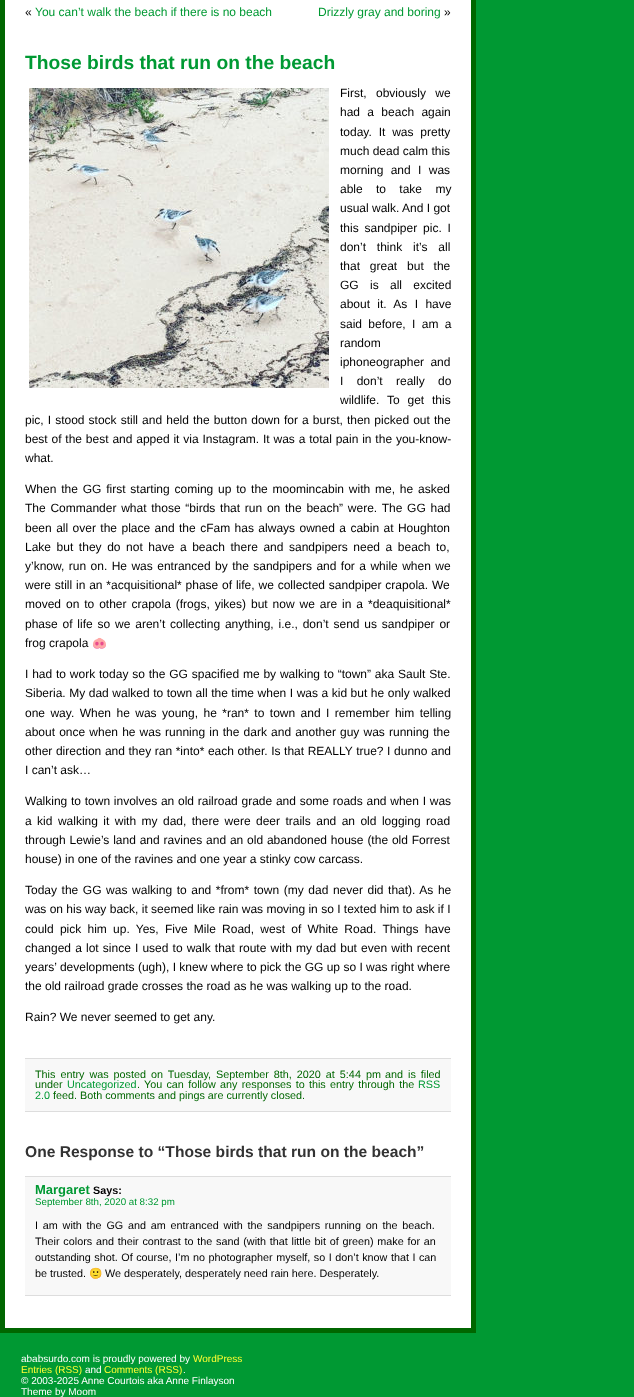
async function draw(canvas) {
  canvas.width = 634
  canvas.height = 1397
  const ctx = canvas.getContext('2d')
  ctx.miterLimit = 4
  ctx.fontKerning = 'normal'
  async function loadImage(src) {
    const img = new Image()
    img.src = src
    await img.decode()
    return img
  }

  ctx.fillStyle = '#093'
  ctx.fillRect(0, 0, 634, 1397)
  ctx.fillStyle = '#fff'
  ctx.beginPath()
  ctx.rect(2.5, -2.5, 471, 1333)
  ctx.fill()
  ctx.strokeStyle = '#060'
  ctx.lineWidth = 5
  ctx.stroke()
  ctx.font = '12px Liberation Sans'
  ctx.fillStyle = '#000'
  ctx.fillText('«', 25, 16)
  ctx.fillStyle = '#093'
  ctx.fillText('You can’t walk the beach if there is no beach', 35, 16)
  ctx.fillText('Drizzly gray and boring', 318, 16)
  ctx.fillStyle = '#000'
  ctx.fillText('»', 444, 16)
  ctx.font = 'bold 19.25px Liberation Sans'
  ctx.fillStyle = '#093'
  ctx.fillText('Those birds that run on the beach', 25, 69)
  ctx.drawImage(await loadImage('image0.png'), 29, 88, 300, 300)
  ctx.wordSpacing = '6px'
  ctx.font = '12px Liberation Sans'
  ctx.fillStyle = '#000'
  ctx.fillText('First, obviously we', 340, 97)
  ctx.wordSpacing = '4px'
  ctx.fillText('had a beach again', 340, 116)
  ctx.wordSpacing = '3.5px'
  ctx.fillText('today. It was pretty', 340, 136)
  ctx.wordSpacing = '0px'
  ctx.fillText('much dead calm this', 340, 155)
  ctx.wordSpacing = '4px'
  ctx.fillText('morning and I was', 340, 174)
  ctx.wordSpacing = '10px'
  ctx.fillText('able to take my', 340, 193)
  ctx.wordSpacing = '0px'
  ctx.fillText('usual walk. And I got', 340, 212)
  ctx.wordSpacing = '2.5px'
  ctx.fillText('this sandpiper pic. I', 340, 232)
  ctx.wordSpacing = '7.5px'
  ctx.fillText('don’t think it’s all', 340, 251)
  ctx.wordSpacing = '6.5px'
  ctx.fillText('that great but the', 340, 270)
  ctx.wordSpacing = '8px'
  ctx.fillText('GG is all excited', 340, 289)
  ctx.wordSpacing = '4px'
  ctx.fillText('about it. As I have', 340, 308)
  ctx.wordSpacing = '3px'
  ctx.fillText('said before, I am a', 340, 328)
  ctx.wordSpacing = '0px'
  ctx.fillText('random', 340, 347)
  ctx.wordSpacing = '3px'
  ctx.fillText('iphoneographer and', 340, 366)
  ctx.wordSpacing = '10px'
  ctx.fillText('I don’t really do', 340, 385)
  ctx.wordSpacing = '4.5px'
  ctx.fillText('wildlife. To get this', 340, 404)
  ctx.wordSpacing = '0.75px'
  ctx.fillText('pic, I stood stock still and held the button down for a burst, then picked out the', 25, 424)
  ctx.wordSpacing = '0.5px'
  ctx.fillText('best of the best and apped it via Instagram. It was a total pain in the you-know-', 25, 443)
  ctx.wordSpacing = '0px'
  ctx.fillText('what.', 25, 462)
  ctx.wordSpacing = '1.5px'
  ctx.fillText('When the GG first starting coming up to the moomincabin with me, he asked', 25, 493)
  ctx.wordSpacing = '1.4px'
  ctx.fillText('The Commander what those “birds that run on the beach” were. The GG had', 25, 512)
  ctx.wordSpacing = '1.1px'
  ctx.fillText('been all over the place and the cFam has always owned a cabin at Houghton', 25, 532)
  ctx.wordSpacing = '2.25px'
  ctx.fillText('Lake but they do not have a beach there and sandpipers need a beach to,', 25, 551)
  ctx.wordSpacing = '1.1px'
  ctx.fillText('y’know, run on. He was entranced by the sandpipers and for a while when we', 25, 570)
  ctx.wordSpacing = '0.5px'
  ctx.fillText('were still in an *acquisitional* phase of life, we collected sandpiper crapola. We', 25, 589)
  ctx.wordSpacing = '1.6px'
  ctx.fillText('moved on to other crapola (frogs, yikes) but now we are in a *deaquisitional*', 25, 608)
  ctx.wordSpacing = '1.5px'
  ctx.fillText('phase of life so we aren’t collecting anything, i.e., don’t send us sandpiper or', 25, 628)
  ctx.wordSpacing = '0px'
  ctx.fillText('frog crapola', 25, 647)
  ctx.font = '12px Noto Color Emoji'
  ctx.fillText('🐽', 92, 647)
  ctx.wordSpacing = '0.5px'
  ctx.font = '12px Liberation Sans'
  ctx.fillText('I had to work today so the GG spacified me by walking to “town” aka Sault Ste.', 25, 678)
  ctx.wordSpacing = '0.2px'
  ctx.fillText('Siberia. My dad walked to town all the time when I was a kid but he only walked', 25, 697)
  ctx.wordSpacing = '2.1px'
  ctx.fillText('one way. When he was young, he *ran* to town and I remember him telling', 25, 717)
  ctx.wordSpacing = '0.8px'
  ctx.fillText('about once when he was running in the dark and another guy was running the', 25, 736)
  ctx.wordSpacing = '0.25px'
  ctx.fillText('other direction and they ran *into* each other. Is that REALLY true? I dunno and', 25, 755)
  ctx.wordSpacing = '0px'
  ctx.fillText('I can’t ask…', 25, 774)
  ctx.wordSpacing = '0.4px'
  ctx.fillText('Walking to town involves an old railroad grade and some roads and when I was', 25, 805)
  ctx.wordSpacing = '2.1px'
  ctx.fillText('a kid walking it with my dad, there were deer trails and an old logging road', 25, 825)
  ctx.wordSpacing = '0.5px'
  ctx.fillText('through Lewie’s land and ravines and an old abandoned house (the old Forrest', 25, 844)
  ctx.wordSpacing = '0px'
  ctx.fillText('house) in one of the ravines and one year a stinky cow carcass.', 25, 863)
  ctx.wordSpacing = '1.25px'
  ctx.fillText('Today the GG was walking to and *from* town (my dad never did that). As he', 25, 894)
  ctx.wordSpacing = '0px'
  ctx.fillText('was on his way back, it seemed like rain was moving in so I texted him to ask if I', 25, 913)
  ctx.wordSpacing = '2.9px'
  ctx.fillText('could pick him up. Yes, Five Mile Road, west of White Road. Things have', 25, 933)
  ctx.wordSpacing = '0.8px'
  ctx.fillText('changed a lot since I used to walk that route with my dad but even with recent', 25, 952)
  ctx.wordSpacing = '0px'
  ctx.fillText('years’ developments (ugh), I knew where to pick the GG up so I was right where', 25, 971)
  ctx.fillText('the old railroad grade crosses the road as he was walking up to the road.', 25, 990)
  ctx.fillText('Rain? We never seemed to get any.', 25, 1021)
  ctx.fillStyle = '#f8f8f8'
  ctx.fillRect(25, 1059, 426, 52)
  ctx.fillStyle = '#ddd'
  ctx.fillRect(25, 1058, 426, 1)
  ctx.fillRect(25, 1111, 426, 1)
  ctx.wordSpacing = '2px'
  ctx.font = '10.8px Liberation Sans'
  ctx.fillStyle = '#060'
  ctx.fillText('This entry was posted', 35, 1078)
  ctx.fillText('on Tuesday, September 8th, 2020 at 5:44 pm', 151, 1078)
  ctx.fillText('and is filed', 385, 1078)
  ctx.wordSpacing = '0px'
  ctx.fillText('under', 35, 1088)
  ctx.fillStyle = '#093'
  ctx.fillText('Uncategorized', 67, 1088)
  ctx.fillStyle = '#060'
  ctx.fillText('.', 137, 1088)
  ctx.wordSpacing = '1.25px'
  ctx.fillText('You can follow any responses to this entry through the', 144, 1088)
  ctx.wordSpacing = '0px'
  ctx.fillStyle = '#093'
  ctx.fillText('RSS', 418, 1088)
  ctx.fillText('2.0', 35, 1099)
  ctx.fillStyle = '#060'
  ctx.fillText('feed. Both comments and pings are currently closed.', 53, 1099)
  ctx.font = 'bold 15.6px Liberation Sans'
  ctx.fillStyle = '#333'
  ctx.fillText('One Response to “Those birds that run on the beach”', 25, 1157)
  ctx.fillStyle = '#f8f8f8'
  ctx.fillRect(25, 1177, 426, 118)
  ctx.fillStyle = '#ddd'
  ctx.fillRect(25, 1176, 426, 1)
  ctx.fillRect(25, 1295, 426, 1)
  ctx.font = 'bold 13px Liberation Sans'
  ctx.fillStyle = '#093'
  ctx.fillText('Margaret', 35, 1194)
  ctx.font = 'bold 10.8px Liberation Sans'
  ctx.fillStyle = '#000'
  ctx.fillText('Says:', 93, 1194)
  ctx.font = '9.75px Liberation Sans'
  ctx.fillStyle = '#093'
  ctx.fillText('September 8th, 2020 at 8:32 pm', 35, 1205)
  ctx.wordSpacing = '1.8px'
  ctx.font = '10.8px Liberation Sans'
  ctx.fillStyle = '#000'
  ctx.fillText('I am with the GG and am entranced with the sandpipers running on the beach.', 35, 1229)
  ctx.wordSpacing = '0.75px'
  ctx.fillText('Their colors and their contrast to the sand (with that little bit of green) make for an', 35, 1245)
  ctx.wordSpacing = '0.5px'
  ctx.fillText('outstanding shot. Of course, I’m no photographer myself, so I don’t know that I can', 35, 1261)
  ctx.wordSpacing = '0px'
  ctx.fillText('be trusted.', 35, 1277)
  ctx.font = '10.8px Noto Color Emoji'
  ctx.fillText('🙂', 89, 1277)
  ctx.font = '10.8px Liberation Sans'
  ctx.fillText('We desperately, desperately need rain here. Desperately.', 105, 1277)
  ctx.font = '10px Liberation Sans'
  ctx.fillStyle = '#fff'
  ctx.fillText('ababsurdo.com is proudly powered by', 21, 1362)
  ctx.fillStyle = '#ff3'
  ctx.fillText('WordPress', 193, 1362)
  ctx.fillText('Entries (RSS)', 21, 1373)
  ctx.fillStyle = '#fff'
  ctx.fillText('and', 85, 1373)
  ctx.fillStyle = '#ff3'
  ctx.fillText('Comments (RSS)', 104, 1373)
  ctx.fillStyle = '#fff'
  ctx.fillText('.', 183, 1373)
  ctx.fillText('© 2003-2025 Anne Courtois aka Anne Finlayson', 21, 1384)
  ctx.fillText('Theme by Moom', 21, 1395)
}

draw(document.querySelector('canvas'))
